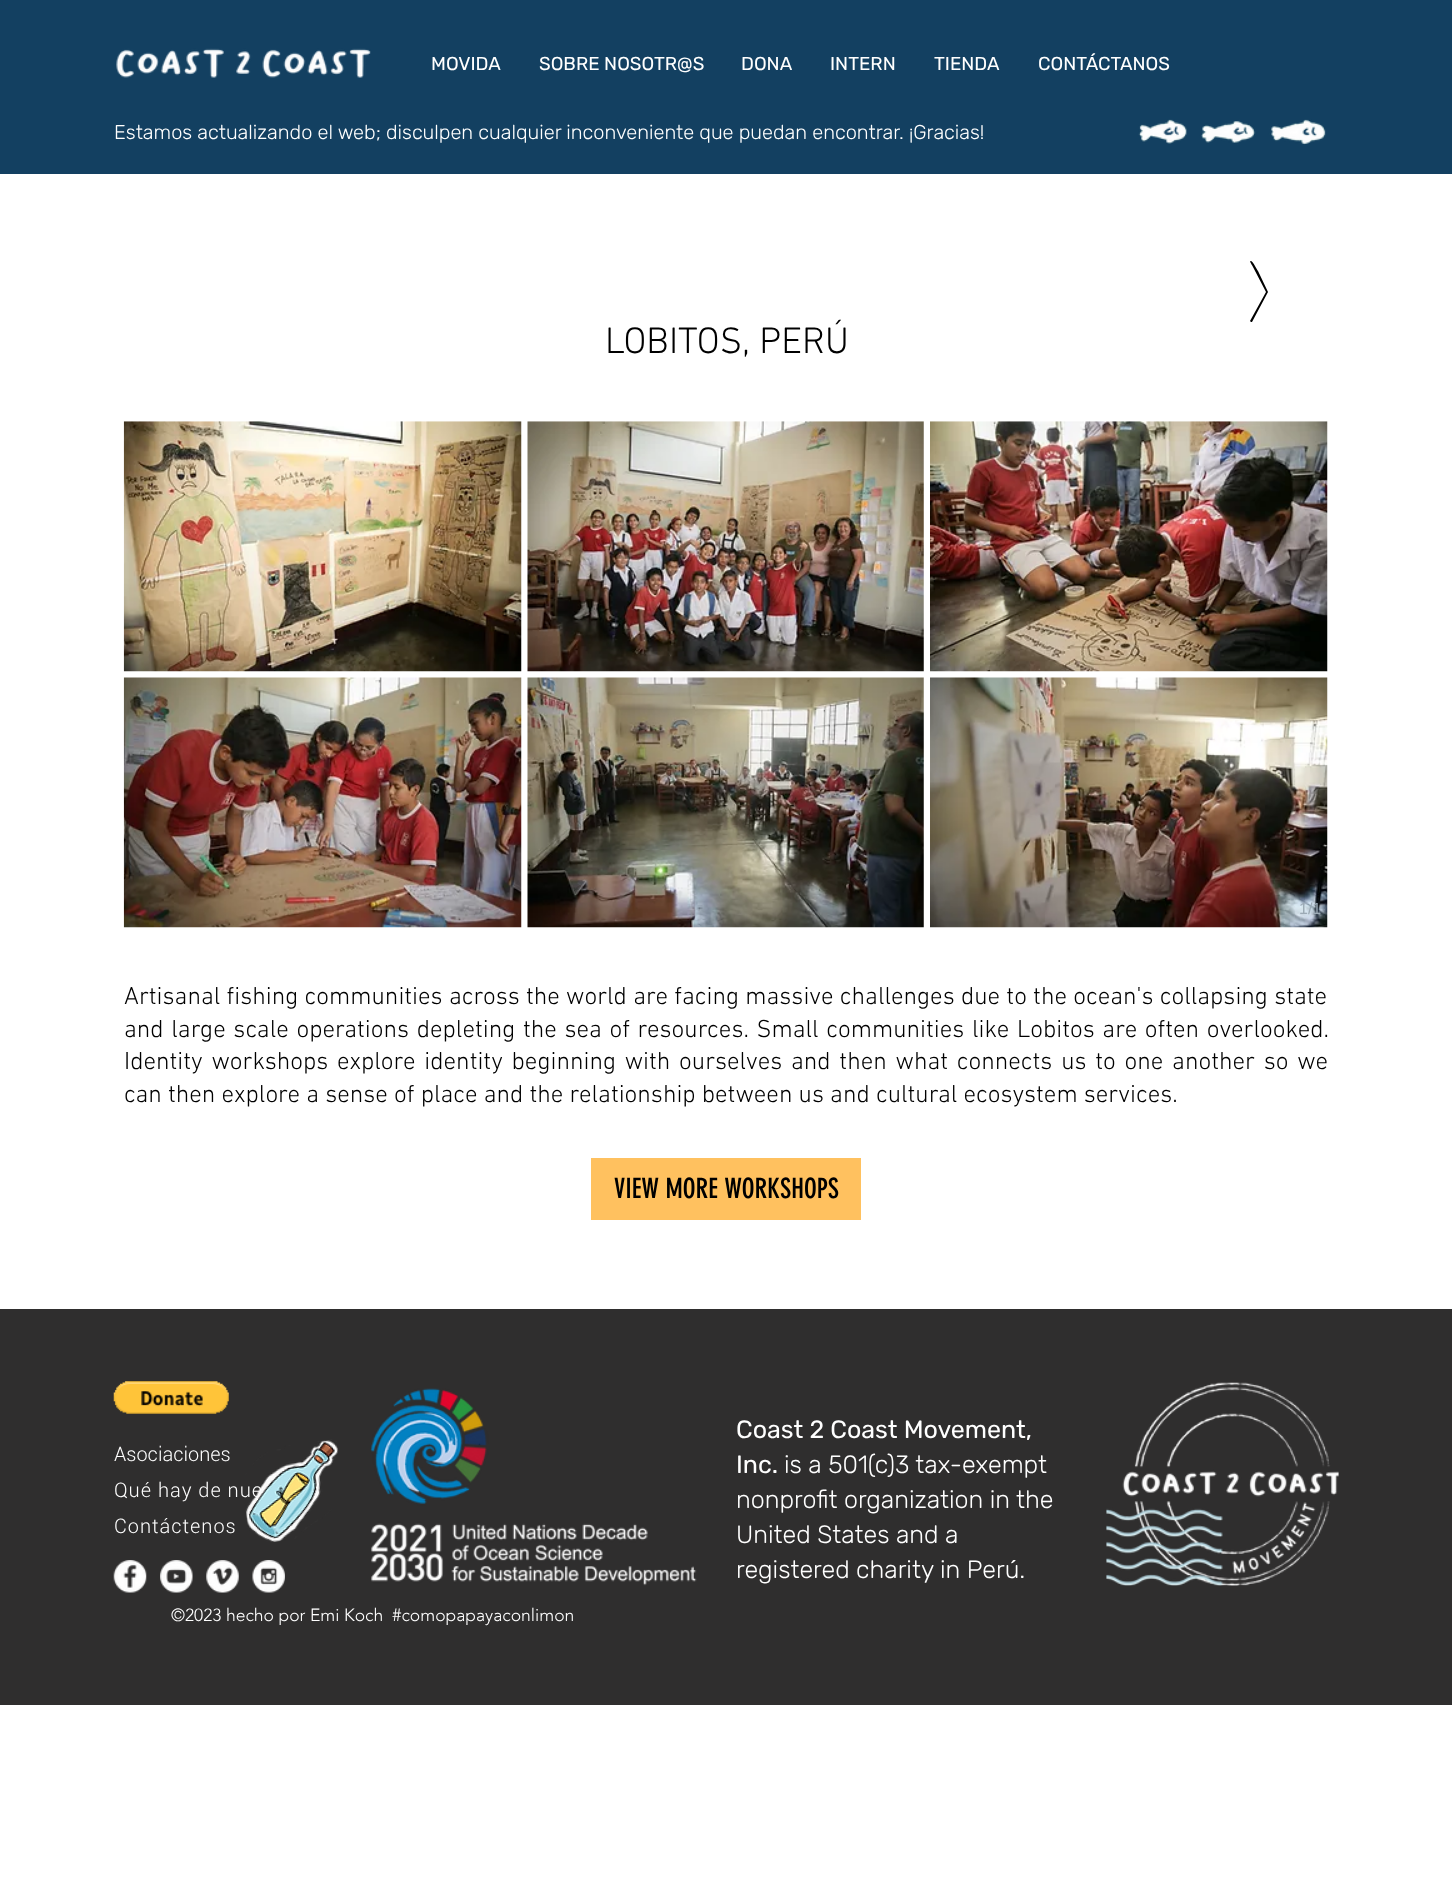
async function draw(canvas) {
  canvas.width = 1452
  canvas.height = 1904
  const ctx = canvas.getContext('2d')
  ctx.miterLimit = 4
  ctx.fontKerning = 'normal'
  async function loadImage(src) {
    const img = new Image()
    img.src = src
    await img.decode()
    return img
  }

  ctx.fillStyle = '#fff'
  ctx.fillRect(0, 0, 1452, 1904)
  ctx.fillStyle = '#134061'
  ctx.fillRect(0, 0, 1452, 174)
  ctx.drawImage(await loadImage('image0.png'), 116, 48, 255, 30)
  ctx.font = '18.75px "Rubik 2"'
  ctx.fillStyle = '#fff'
  ctx.fillText('MOVIDA', 431, 70)
  ctx.fillText('SOBRE NOSOTR@S', 539, 70)
  ctx.fillText('DONA', 741, 70)
  ctx.fillText('INTERN', 830, 70)
  ctx.fillText('TIENDA', 934, 70)
  ctx.fillText('CONTÁCTANOS', 1038, 70)
  ctx.font = '300 20px "Rubik 2"'
  ctx.fillText('Estamos actualizando el web; disculpen cualquier inconveniente que puedan encontrar. ¡Gracias!', 114, 139)
  ctx.drawImage(await loadImage('image1.png'), 1138, 119, 188, 26)
  ctx.font = '300 37.5px "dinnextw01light"'
  ctx.fillStyle = '#000'
  ctx.fillText('LOBITOS, PERÚ', 605, 353)
  ctx.drawImage(await loadImage('image2.png'), 123, 421, 399, 251)
  ctx.drawImage(await loadImage('image3.png'), 527, 421, 397, 251)
  ctx.drawImage(await loadImage('image4.png'), 930, 421, 398, 251)
  ctx.drawImage(await loadImage('image5.png'), 123, 677, 399, 251)
  ctx.drawImage(await loadImage('image6.png'), 527, 677, 397, 251)
  ctx.drawImage(await loadImage('image7.png'), 930, 677, 398, 251)
  ctx.font = '16px Liberation Sans'
  ctx.fillStyle = '#9caab5'
  ctx.fillText('1/1', 1299, 914)
  ctx.wordSpacing = '0.1px'
  ctx.font = '300 25px "dinnextw01light"'
  ctx.fillStyle = '#000'
  ctx.fillText('Artisanal fishing communities across the world are facing massive challenges due to the ocean\'s collapsing state', 124, 1004)
  ctx.wordSpacing = '1.5px'
  ctx.fillText('and large scale operations depleting the sea of resources. Small communities like Lobitos are often overlooked.', 124, 1037)
  ctx.wordSpacing = '2.6px'
  ctx.fillText('Identity workshops explore identity beginning with ourselves and then what connects us to one another so we', 124, 1069)
  ctx.wordSpacing = '0px'
  ctx.fillText('can then explore a sense of place and the relationship between us and cultural ecosystem services.', 124, 1102)
  ctx.beginPath()
  ctx.moveTo(1251, 261)
  ctx.bezierCurveTo(1253, 261, 1257, 270, 1258, 271)
  ctx.lineTo(1268, 292)
  ctx.lineTo(1252, 322)
  ctx.lineTo(1251, 322)
  ctx.lineTo(1250, 321)
  ctx.lineTo(1266, 292)
  ctx.lineTo(1253, 267)
  ctx.bezierCurveTo(1251, 263, 1249, 261, 1251, 261)
  ctx.closePath()
  ctx.fill()
  ctx.fillStyle = '#ffc15f'
  ctx.fillRect(591, 1158, 270, 62)
  ctx.font = '27.5px "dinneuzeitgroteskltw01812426"'
  ctx.fillStyle = '#000'
  ctx.fillText('VIEW MORE WORKSHOPS', 614, 1198)
  ctx.fillStyle = '#2f2e2e'
  ctx.fillRect(0, 1309, 1452, 396)
  ctx.drawImage(await loadImage('image8.png'), 113, 1381, 116, 33)
  ctx.letterSpacing = '1px'
  ctx.font = '300 20px Roboto'
  ctx.fillStyle = '#fff'
  ctx.fillText('Qué hay de nue', 114, 1497)
  ctx.drawImage(await loadImage('image9.png'), 245, 1439, 94, 103)
  ctx.drawImage(await loadImage('image10.png'), 370, 1388, 327, 198)
  ctx.letterSpacing = '0px'
  ctx.font = '25px Rubik'
  ctx.fillText('Coast 2 Coast Movement,', 736, 1438)
  ctx.fillText('Inc.', 736, 1473)
  ctx.font = '300 25px Rubik'
  ctx.fillText('is a 501(c)3 tax-exempt', 784, 1473)
  ctx.fillText('nonprofit organization in the', 736, 1508)
  ctx.fillText('United States and a', 736, 1543)
  ctx.fillText('registered charity in Perú.', 736, 1578)
  ctx.drawImage(await loadImage('image11.png'), 1106, 1382, 233, 204)
  ctx.font = '300 20px Roboto'
  ctx.fillText('Asociaciones', 114, 1461)
  ctx.letterSpacing = '1px'
  ctx.fillText('Contáctenos', 114, 1533)
  ctx.drawImage(await loadImage('image12.png'), 113, 1560, 34, 33)
  ctx.drawImage(await loadImage('image13.png'), 160, 1560, 33, 33)
  ctx.drawImage(await loadImage('image14.png'), 206, 1560, 33, 33)
  ctx.drawImage(await loadImage('image15.png'), 252, 1560, 33, 33)
  ctx.letterSpacing = '0px'
  ctx.font = '300 17.5px "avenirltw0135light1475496"'
  ctx.fillText('©2023 hecho por Emi Koch  #comopapayaconlimon', 171, 1621)
}

draw(document.querySelector('canvas'))
